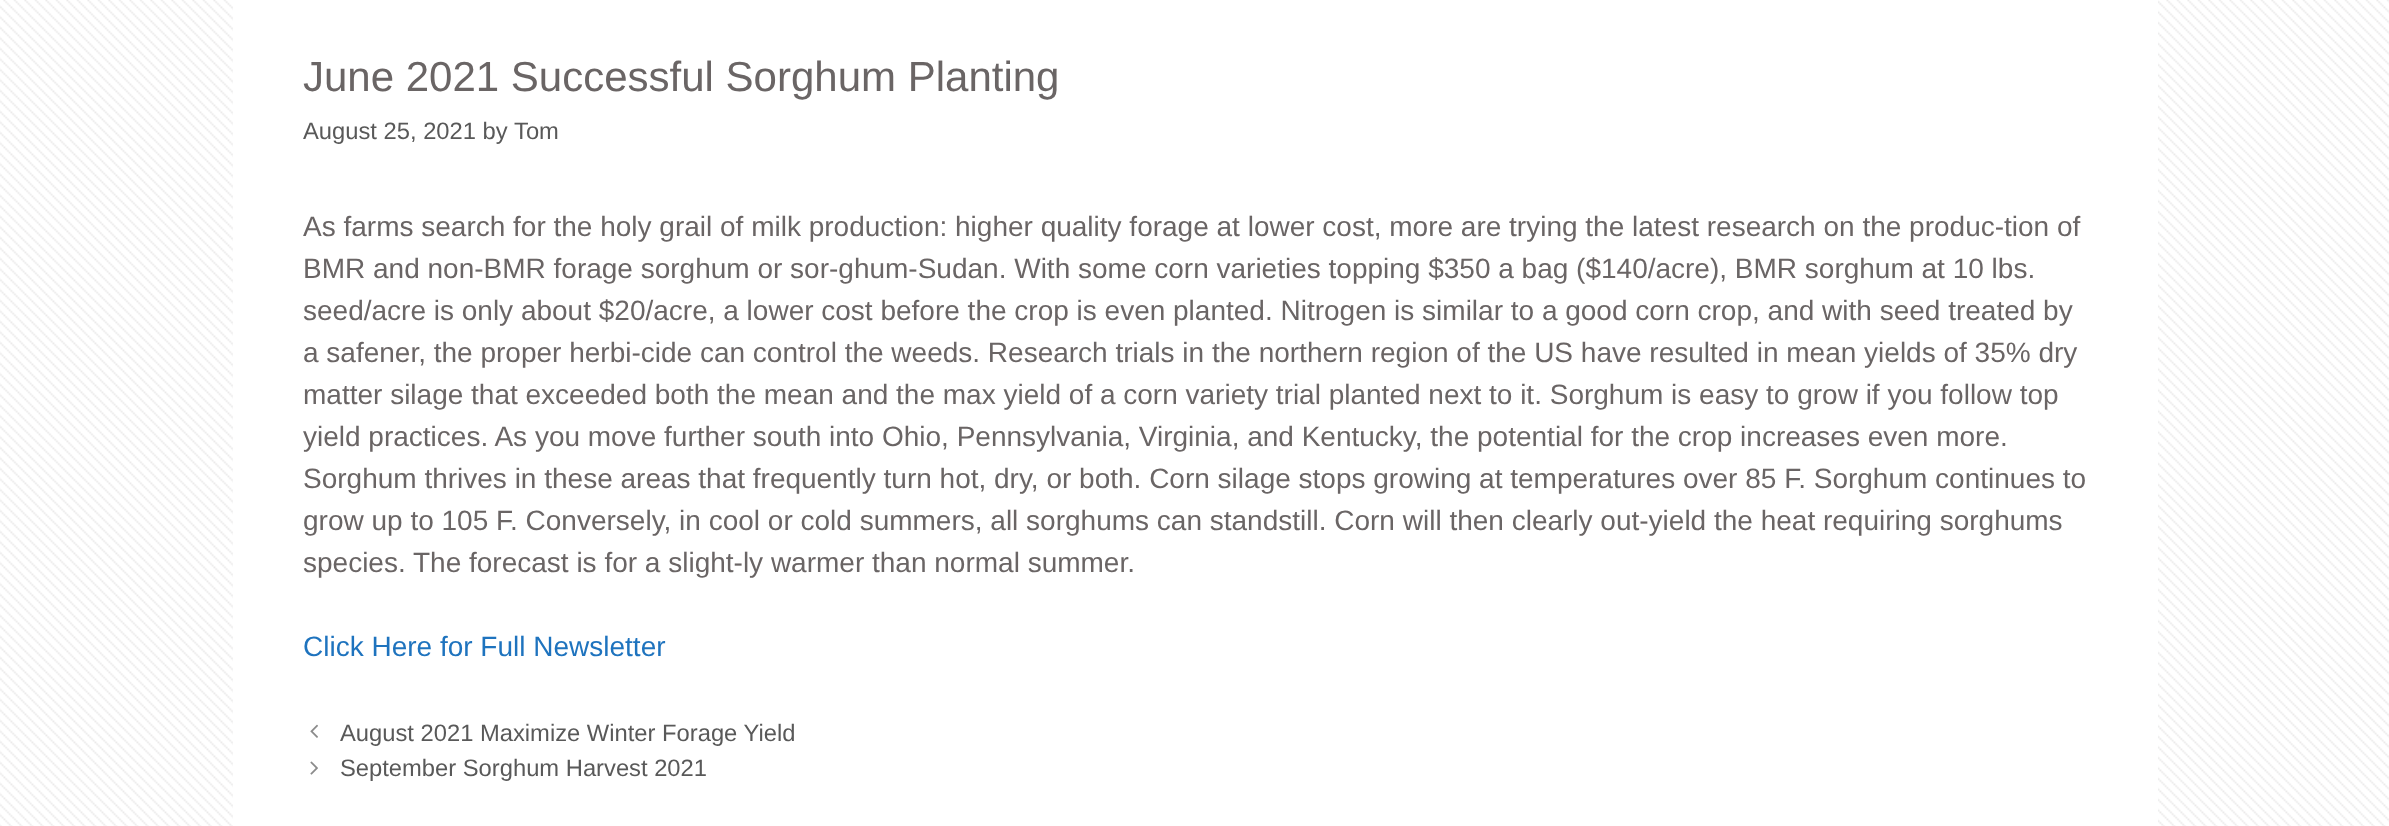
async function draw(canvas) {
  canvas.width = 2389
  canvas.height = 826
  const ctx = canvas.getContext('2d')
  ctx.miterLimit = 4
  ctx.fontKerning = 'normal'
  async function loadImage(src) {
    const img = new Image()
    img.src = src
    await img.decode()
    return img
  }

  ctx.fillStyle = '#fff'
  ctx.fillRect(0, 0, 2389, 826)
  ctx.drawImage(await loadImage('image0.png'), 0, 0, 2389, 826)
  ctx.fillRect(233, 0, 1925, 826)
  ctx.font = '42px Liberation Sans'
  ctx.fillStyle = '#6a6565'
  ctx.fillText('June 2021 Successful Sorghum Planting', 303, 91)
  ctx.font = '23.75px Liberation Sans'
  ctx.fillStyle = '#595959'
  ctx.fillText('August 25, 2021 by', 303, 139)
  ctx.fillText('Tom', 514, 139)
  ctx.font = '28px Liberation Sans'
  ctx.fillStyle = '#6a6565'
  ctx.fillText('As farms search for the holy grail of milk production: higher quality forage at lower cost, more are trying the latest research on the produc-tion of', 303, 236)
  ctx.fillText('BMR and non-BMR forage sorghum or sor-ghum-Sudan. With some corn varieties topping $350 a bag ($140/acre), BMR sorghum at 10 lbs.', 303, 278)
  ctx.fillText('seed/acre is only about $20/acre, a lower cost before the crop is even planted. Nitrogen is similar to a good corn crop, and with seed treated by', 303, 320)
  ctx.fillText('a safener, the proper herbi-cide can control the weeds. Research trials in the northern region of the US have resulted in mean yields of 35% dry', 303, 362)
  ctx.fillText('matter silage that exceeded both the mean and the max yield of a corn variety trial planted next to it. Sorghum is easy to grow if you follow top', 303, 404)
  ctx.fillText('yield practices. As you move further south into Ohio, Pennsylvania, Virginia, and Kentucky, the potential for the crop increases even more.', 303, 446)
  ctx.fillText('Sorghum thrives in these areas that frequently turn hot, dry, or both. Corn silage stops growing at temperatures over 85 F. Sorghum continues to', 303, 488)
  ctx.fillText('grow up to 105 F. Conversely, in cool or cold summers, all sorghums can standstill. Corn will then clearly out-yield the heat requiring sorghums', 303, 530)
  ctx.fillText('species. The forecast is for a slight-ly warmer than normal summer.', 303, 572)
  ctx.fillStyle = '#1e73be'
  ctx.fillText('Click Here for Full Newsletter', 303, 656)
  ctx.drawImage(await loadImage('image1.png'), 310, 724, 8, 14)
  ctx.font = '23.75px Liberation Sans'
  ctx.fillStyle = '#595959'
  ctx.fillText('August 2021 Maximize Winter Forage Yield', 340, 741)
  ctx.drawImage(await loadImage('image2.png'), 310, 761, 8, 14)
  ctx.fillText('September Sorghum Harvest 2021', 340, 776)
}

draw(document.querySelector('canvas'))
